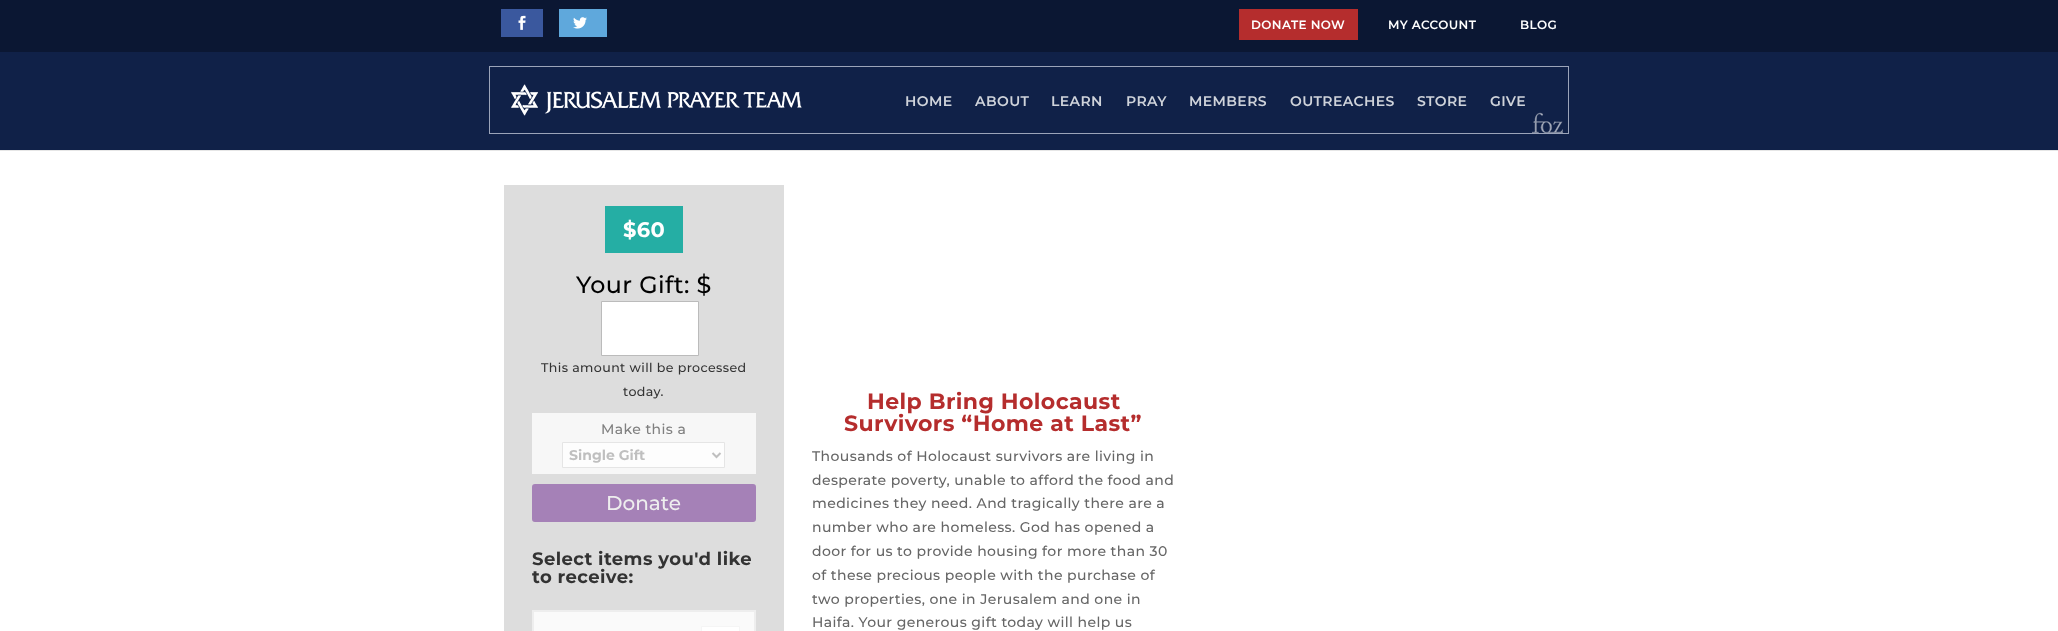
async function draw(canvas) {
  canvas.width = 2058
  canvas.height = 631
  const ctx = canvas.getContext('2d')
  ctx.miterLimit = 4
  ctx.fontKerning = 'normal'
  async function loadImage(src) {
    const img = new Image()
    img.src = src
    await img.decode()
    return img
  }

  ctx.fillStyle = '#0b1733'
  ctx.fillRect(0, 0, 2058, 631)
  ctx.fillStyle = '#3a589e'
  ctx.fillRect(501, 9, 42, 28)
  ctx.drawImage(await loadImage('image0.png'), 518, 15, 8, 15)
  ctx.fillStyle = '#5fa8dc'
  ctx.fillRect(559, 9, 48, 28)
  ctx.drawImage(await loadImage('image1.png'), 573, 17, 14, 12)
  ctx.fillStyle = '#b52d2d'
  ctx.fillRect(1239, 9, 119, 31)
  ctx.letterSpacing = '0.4px'
  ctx.font = '600 12px Montserrat'
  ctx.fillStyle = '#fff'
  ctx.fillText('DONATE NOW', 1251, 29)
  ctx.fillText('MY ACCOUNT', 1388, 29)
  ctx.fillText('BLOG', 1520, 29)
  ctx.fillStyle = '#e6e6e6'
  ctx.fillRect(0, 150, 2058, 1)
  ctx.fillStyle = '#102148'
  ctx.fillRect(0, 52, 2058, 98)
  ctx.drawImage(await loadImage('image2.png'), 1532, 112, 31, 21)
  ctx.strokeStyle = '#9ba4b9'
  ctx.strokeRect(489.5, 66.5, 1079, 67)
  ctx.drawImage(await loadImage('image3.png'), 511, 84, 291, 32)
  ctx.font = '600 14px Montserrat'
  ctx.fillStyle = '#cfd3da'
  ctx.fillText('HOME', 905, 106)
  ctx.fillText('ABOUT', 975, 106)
  ctx.fillText('LEARN', 1051, 106)
  ctx.fillText('PRAY', 1126, 106)
  ctx.fillText('MEMBERS', 1189, 106)
  ctx.fillText('OUTREACHES', 1290, 106)
  ctx.fillText('STORE', 1417, 106)
  ctx.fillText('GIVE', 1490, 106)
  ctx.fillStyle = '#fff'
  ctx.fillRect(0, 151, 2058, 480)
  ctx.fillStyle = '#ddd'
  ctx.fillRect(504, 185, 280, 446)
  ctx.fillStyle = '#25aea4'
  ctx.fillRect(605, 206, 78, 47)
  ctx.font = 'bold 21px Montserrat'
  ctx.fillStyle = '#fff'
  ctx.fillText('$60', 623, 237)
  ctx.font = '500 23.75px Montserrat'
  ctx.fillStyle = '#000'
  ctx.fillText('Your Gift: $', 576, 293)
  ctx.fillStyle = '#fff'
  ctx.beginPath()
  ctx.rect(601.5, 301.5, 97, 54)
  ctx.fill()
  ctx.strokeStyle = '#bbb'
  ctx.stroke()
  ctx.font = '500 12.6px Montserrat'
  ctx.fillStyle = '#333'
  ctx.fillText('This amount will be processed', 541, 372)
  ctx.fillText('today.', 623, 396)
  ctx.fillStyle = '#f7f7f7'
  ctx.fillRect(532, 413, 224, 61)
  ctx.font = '500 14px Montserrat'
  ctx.fillStyle = '#808080'
  ctx.fillText('Make this a', 601, 434)
  ctx.fillStyle = '#fdfdfd'
  ctx.beginPath()
  ctx.rect(562.5, 442.5, 162, 25)
  ctx.fill()
  ctx.strokeStyle = '#e5e5e5'
  ctx.stroke()
  ctx.beginPath()
  ctx.moveTo(712.5, 453)
  ctx.lineTo(716.5, 457)
  ctx.lineTo(720.5, 453)
  ctx.strokeStyle = '#bfbfbf'
  ctx.lineWidth = 2
  ctx.stroke()
  ctx.letterSpacing = '0px'
  ctx.font = 'bold 14px Montserrat'
  ctx.fillStyle = '#bfbfbf'
  ctx.fillText('Single Gift', 569, 460)
  ctx.fillStyle = '#a581b7'
  ctx.beginPath()
  ctx.roundRect(533, 485, 222, 36, 2)
  ctx.fill()
  ctx.strokeStyle = '#a581b7'
  ctx.stroke()
  ctx.font = '500 20px Montserrat'
  ctx.fillStyle = '#eee'
  ctx.fillText('Donate', 606, 510)
  ctx.letterSpacing = '0.4px'
  ctx.font = 'bold 18px Montserrat'
  ctx.fillStyle = '#333'
  ctx.fillText('Select items you\'d like', 532, 565)
  ctx.fillText('to receive:', 532, 583)
  ctx.fillStyle = '#eee'
  ctx.fillRect(532, 610, 224, 21)
  ctx.fillStyle = '#fafafa'
  ctx.fillRect(534, 612, 220, 19)
  ctx.fillStyle = '#fff'
  ctx.beginPath()
  ctx.rect(701.5, 626.5, 38, 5)
  ctx.fill()
  ctx.strokeStyle = '#f5f5f5'
  ctx.lineWidth = 1
  ctx.stroke()
  ctx.font = 'bold 22px Montserrat'
  ctx.fillStyle = '#b52d2d'
  ctx.fillText('Help Bring Holocaust', 867, 409)
  ctx.fillText('Survivors “Home at Last”', 844, 431)
  ctx.font = '500 14px Montserrat'
  ctx.fillStyle = '#666'
  ctx.fillText('Thousands of Holocaust survivors are living in', 812, 461)
  ctx.fillText('desperate poverty, unable to afford the food and', 812, 485)
  ctx.fillText('medicines they need. And tragically there are a', 812, 508)
  ctx.fillText('number who are homeless. God has opened a', 812, 532)
  ctx.fillText('door for us to provide housing for more than 30', 812, 556)
  ctx.fillText('of these precious people with the purchase of', 812, 580)
  ctx.fillText('two properties, one in Jerusalem and one in', 812, 604)
  ctx.fillText('Haifa. Your generous gift today will help us', 812, 627)
}

draw(document.querySelector('canvas'))
